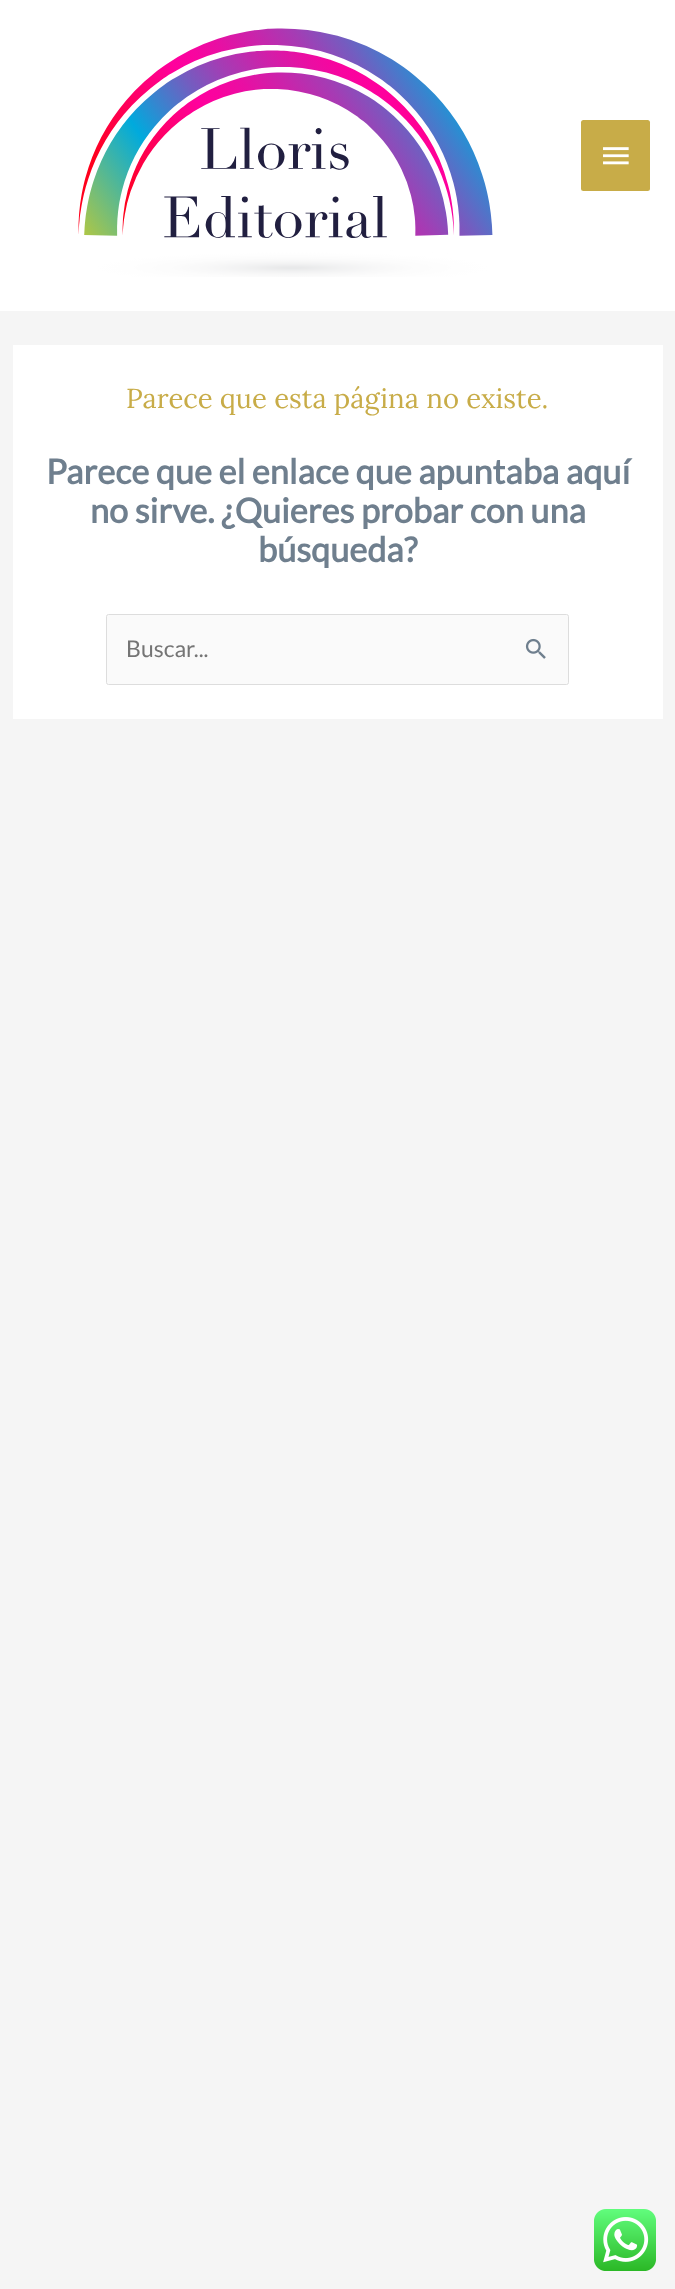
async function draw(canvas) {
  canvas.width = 675
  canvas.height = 2289
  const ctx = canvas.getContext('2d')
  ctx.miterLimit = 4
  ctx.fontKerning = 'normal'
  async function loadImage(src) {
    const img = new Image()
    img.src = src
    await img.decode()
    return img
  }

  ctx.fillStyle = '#f5f5f5'
  ctx.fillRect(0, 0, 675, 2289)
  ctx.fillStyle = '#fff'
  ctx.fillRect(0, 0, 675, 311)
  ctx.drawImage(await loadImage('image0.png'), 78, 28, 415, 249)
  ctx.fillStyle = '#c8ac48'
  ctx.beginPath()
  ctx.roundRect(581, 120, 69, 71, 2.5)
  ctx.fill()
  ctx.drawImage(await loadImage('image1.png'), 603, 147, 26, 18)
  ctx.fillStyle = '#fff'
  ctx.fillRect(13, 345, 650, 374)
  ctx.font = '27.5px Lora'
  ctx.fillStyle = '#c8ac48'
  ctx.fillText('Parece que esta página no existe.', 126, 408)
  ctx.font = 'bold 34.25px Lato'
  ctx.fillStyle = '#6f7f8e'
  ctx.fillText('Parece que el enlace que apuntaba aquí', 46, 484)
  ctx.fillText('no sirve. ¿Quieres probar con una', 90, 523)
  ctx.fillText('búsqueda?', 258, 562)
  ctx.fillStyle = '#fafafa'
  ctx.beginPath()
  ctx.roundRect(106.5, 614.5, 462, 70, 2)
  ctx.fill()
  ctx.strokeStyle = '#ddd'
  ctx.stroke()
  ctx.font = '23px Lato'
  ctx.fillStyle = '#757575'
  ctx.fillText('Buscar...', 126, 657)
  ctx.drawImage(await loadImage('image2.png'), 525, 638, 21, 21)
  ctx.drawImage(await loadImage('image3.png'), 594, 2209, 62, 62)
}

draw(document.querySelector('canvas'))
